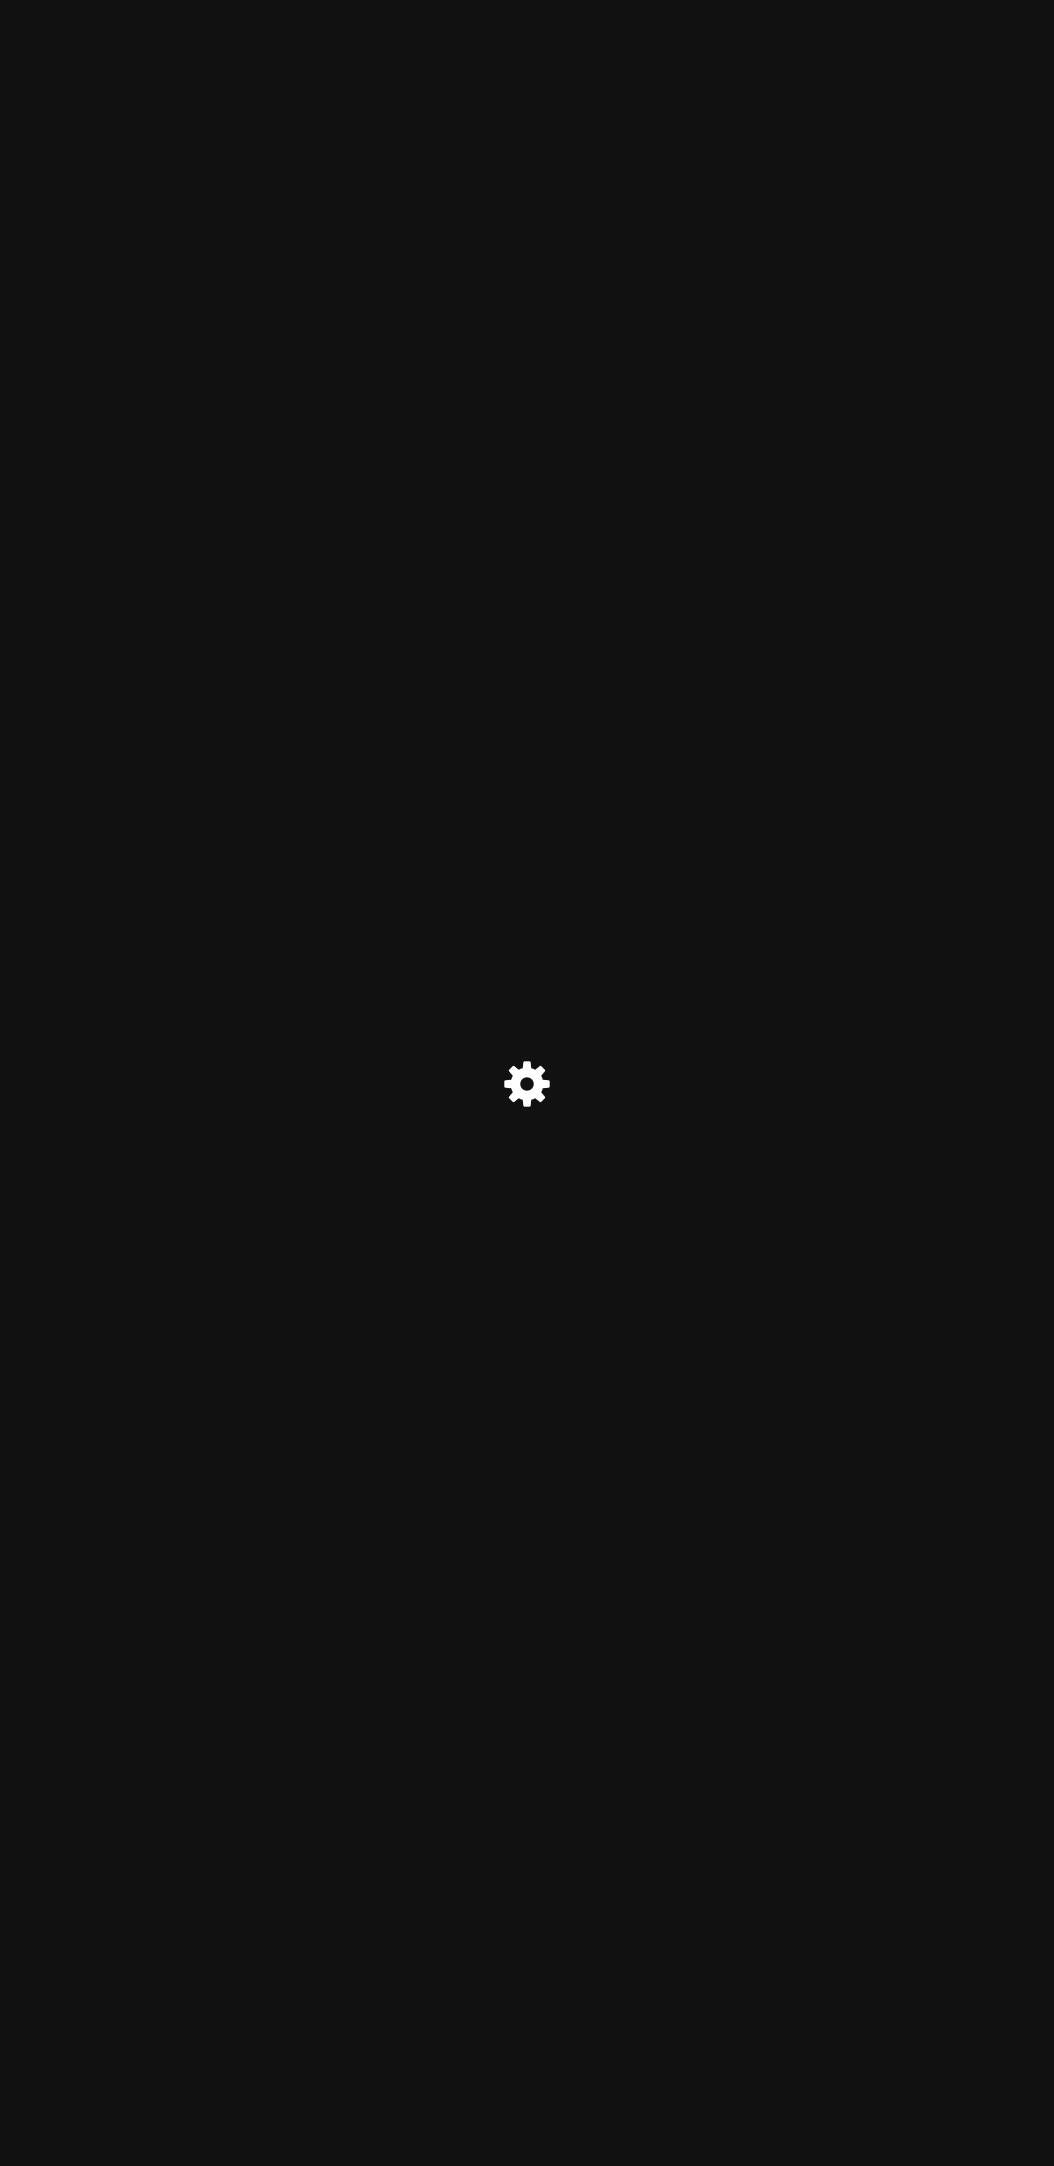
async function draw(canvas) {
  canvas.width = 1054
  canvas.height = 2166
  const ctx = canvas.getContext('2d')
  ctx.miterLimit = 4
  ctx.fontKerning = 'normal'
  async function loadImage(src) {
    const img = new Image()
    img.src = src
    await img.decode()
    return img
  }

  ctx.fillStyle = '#111'
  ctx.fillRect(0, 0, 1054, 2166)
  ctx.drawImage(await loadImage('image0.png'), 504, 1061, 46, 46)
}

draw(document.querySelector('canvas'))
